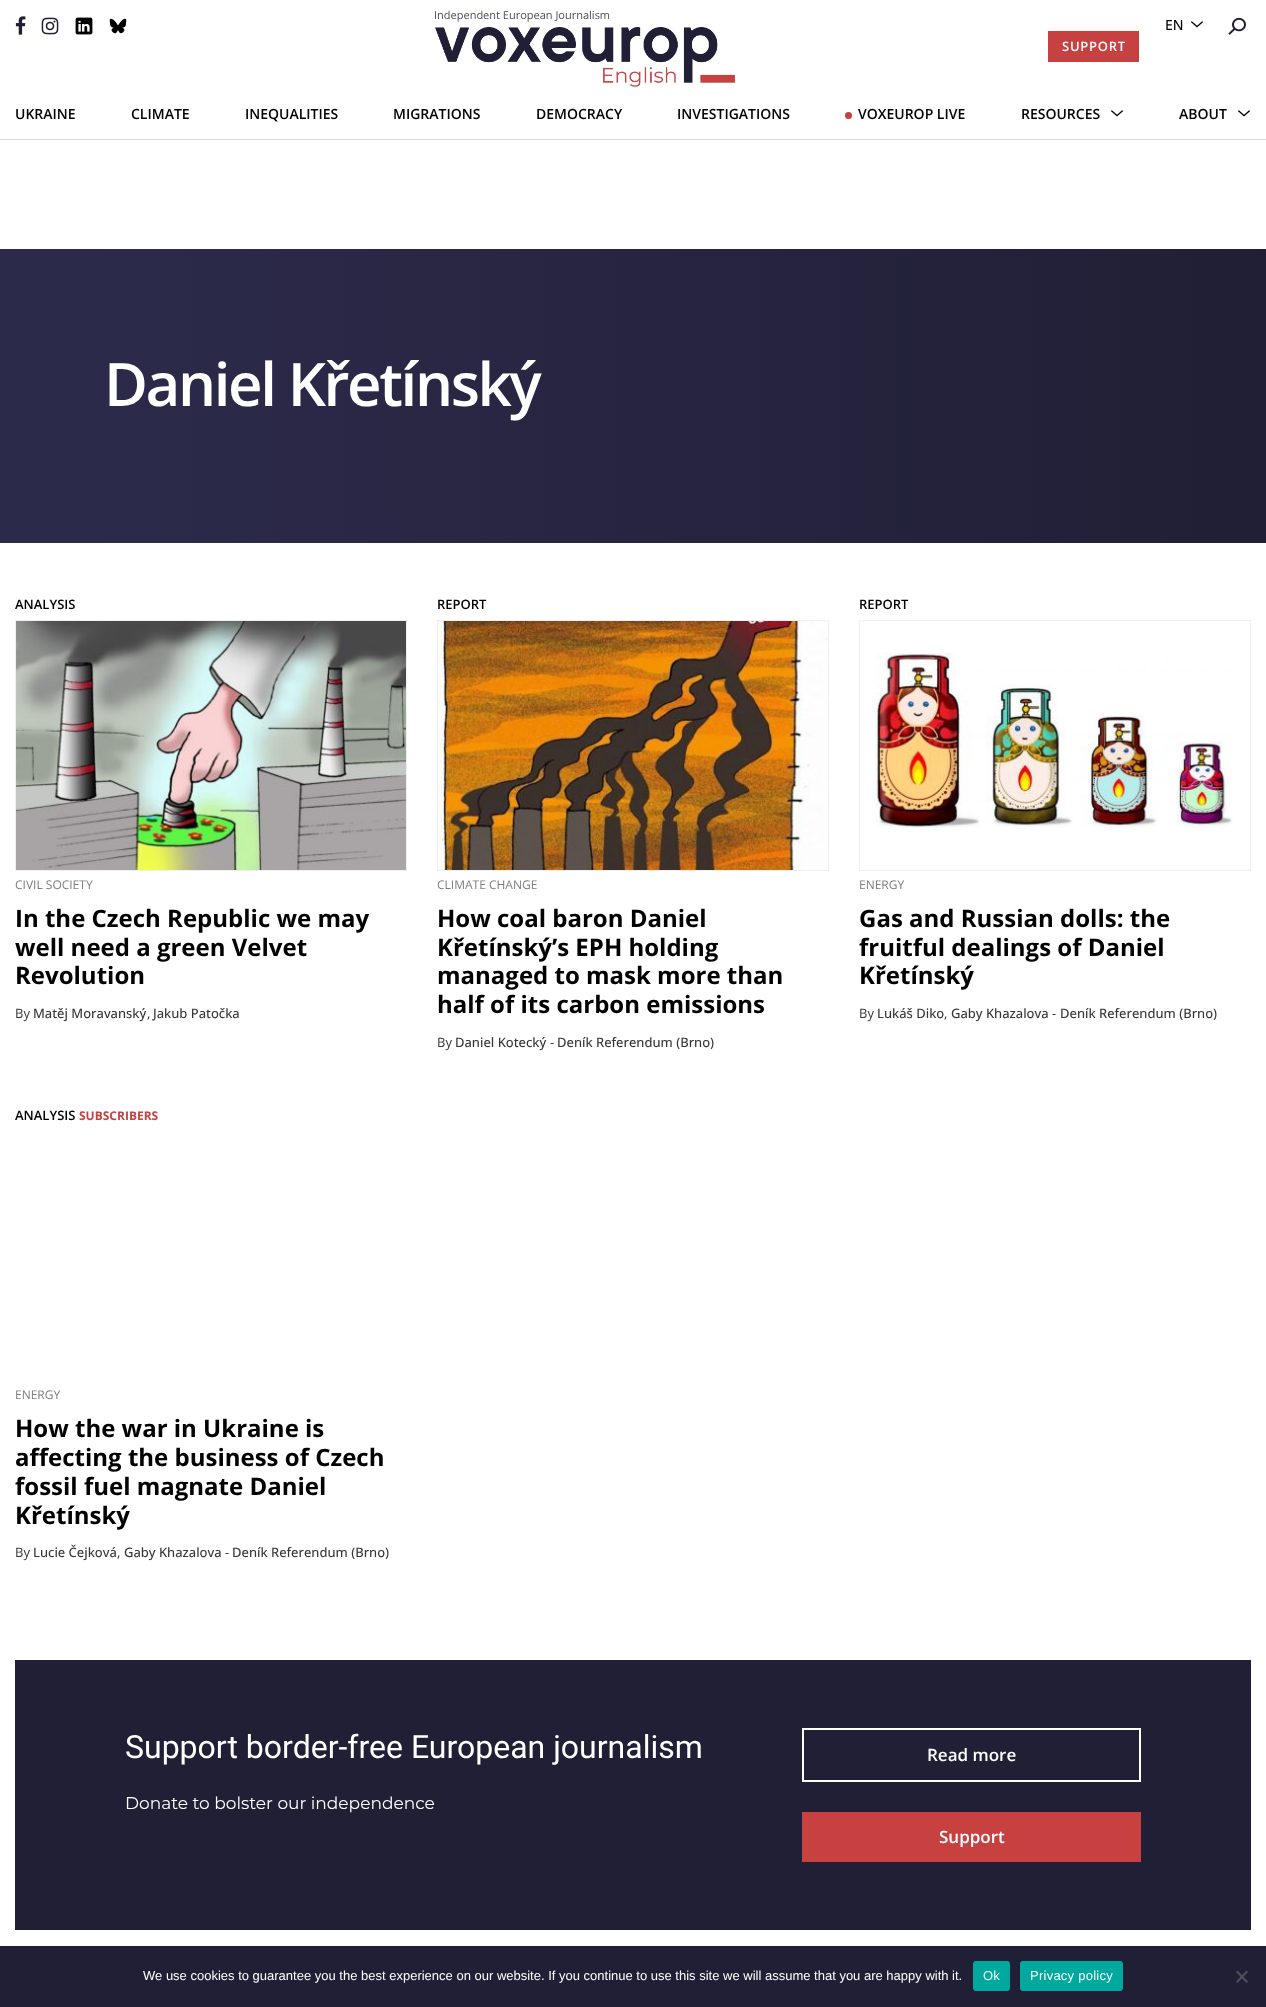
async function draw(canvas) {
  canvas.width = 1266
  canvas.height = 2007
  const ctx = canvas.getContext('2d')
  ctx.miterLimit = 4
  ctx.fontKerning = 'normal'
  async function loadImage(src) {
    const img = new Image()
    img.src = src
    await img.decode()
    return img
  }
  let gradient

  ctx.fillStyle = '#fff'
  ctx.fillRect(0, 0, 1266, 2007)
  ctx.drawImage(await loadImage('image0.png'), 15, 16, 11, 19)
  ctx.drawImage(await loadImage('image1.png'), 41, 17, 18, 18)
  ctx.drawImage(await loadImage('image2.png'), 75, 17, 18, 18)
  ctx.drawImage(await loadImage('image3.png'), 109, 18, 18, 16)
  ctx.font = '11px Open Sans'
  ctx.fillStyle = '#4e4e57'
  ctx.fillText('Independent European Journalism', 434, 19)
  ctx.drawImage(await loadImage('image4.png'), 435, 27, 300, 60)
  ctx.fillStyle = '#c74141'
  ctx.fillRect(1048, 31, 91, 31)
  ctx.letterSpacing = '0.75px'
  ctx.font = '600 13px Open Sans'
  ctx.fillStyle = '#fff'
  ctx.fillText('SUPPORT', 1062, 51)
  ctx.drawImage(await loadImage('image5.png'), 1191, 21, 12, 7)
  ctx.letterSpacing = '0px'
  ctx.font = '500 14px Open Sans'
  ctx.fillStyle = '#000'
  ctx.fillText('EN', 1165, 30)
  ctx.drawImage(await loadImage('image6.png'), 1228, 17, 18, 18)
  ctx.fillStyle = '#dbdbdb'
  ctx.fillRect(0, 139, 1266, 1)
  ctx.font = '600 14px Open Sans'
  ctx.fillStyle = '#000'
  ctx.fillText('UKRAINE', 15, 119)
  ctx.fillText('CLIMATE', 131, 119)
  ctx.fillText('INEQUALITIES', 245, 119)
  ctx.fillText('MIGRATIONS', 393, 119)
  ctx.fillText('DEMOCRACY', 536, 119)
  ctx.fillText('INVESTIGATIONS', 677, 119)
  ctx.fillStyle = '#c74141'
  ctx.beginPath()
  ctx.arc(848.5, 115.5, 3.5, 0, 2 * Math.PI)
  ctx.fill()
  ctx.fillStyle = '#000'
  ctx.fillText('VOXEUROP LIVE', 858, 119)
  ctx.fillText('RESOURCES', 1021, 119)
  ctx.drawImage(await loadImage('image5.png'), 1111, 110, 12, 7)
  ctx.fillText('ABOUT', 1179, 119)
  ctx.drawImage(await loadImage('image5.png'), 1238, 110, 12, 7)
  gradient = ctx.createLinearGradient(0, 396, 1266, 396)
  gradient.addColorStop(0.08, '#2c2a4a')
  gradient.addColorStop(1, '#201f35')
  ctx.fillStyle = gradient
  ctx.fillRect(0, 249, 1266, 294)
  ctx.letterSpacing = '-2.4px'
  ctx.font = '600 60px Open Sans'
  ctx.fillStyle = '#fff'
  ctx.fillText('Daniel Křetínský', 104, 406)
  ctx.letterSpacing = '0px'
  ctx.font = '600 13px Open Sans'
  ctx.fillStyle = '#000'
  ctx.fillText('ANALYSIS', 15, 609)
  ctx.strokeStyle = '#f0f0f0'
  ctx.strokeRect(15.5, 620.5, 391, 250)
  ctx.drawImage(await loadImage('image7.png'), 16, 621, 390, 249)
  ctx.font = '12px Open Sans'
  ctx.fillStyle = '#7d7d7d'
  ctx.fillText('CIVIL SOCIETY', 15, 889)
  ctx.font = 'bold 24px Open Sans'
  ctx.fillStyle = '#000'
  ctx.fillText('In the Czech Republic we may', 15, 927)
  ctx.fillText('well need a green Velvet', 15, 956)
  ctx.fillText('Revolution', 15, 984)
  ctx.font = '13px Open Sans'
  ctx.fillStyle = '#363636'
  ctx.fillText('By', 15, 1018)
  ctx.font = '500 13px Open Sans'
  ctx.fillText('Matěj Moravanský', 33, 1018)
  ctx.font = '13px Open Sans'
  ctx.fillText(',', 147, 1018)
  ctx.font = '500 13px Open Sans'
  ctx.fillText('Jakub Patočka', 153, 1018)
  ctx.font = '600 13px Open Sans'
  ctx.fillStyle = '#000'
  ctx.fillText('REPORT', 437, 609)
  ctx.strokeRect(437.5, 620.5, 391, 250)
  ctx.drawImage(await loadImage('image8.png'), 438, 621, 390, 249)
  ctx.font = '12px Open Sans'
  ctx.fillStyle = '#7d7d7d'
  ctx.fillText('CLIMATE CHANGE', 437, 889)
  ctx.font = 'bold 24px Open Sans'
  ctx.fillStyle = '#000'
  ctx.fillText('How coal baron Daniel', 437, 927)
  ctx.fillText('Křetínský’s EPH holding', 437, 956)
  ctx.fillText('managed to mask more than', 437, 984)
  ctx.fillText('half of its carbon emissions', 437, 1013)
  ctx.font = '13px Open Sans'
  ctx.fillStyle = '#363636'
  ctx.fillText('By', 437, 1047)
  ctx.font = '500 13px Open Sans'
  ctx.fillText('Daniel Kotecký', 455, 1047)
  ctx.font = '13px Open Sans'
  ctx.fillText('-', 550, 1047)
  ctx.font = '500 13px Open Sans'
  ctx.fillText('Deník Referendum (Brno)', 557, 1047)
  ctx.font = '600 13px Open Sans'
  ctx.fillStyle = '#000'
  ctx.fillText('REPORT', 859, 609)
  ctx.strokeRect(859.5, 620.5, 391, 250)
  ctx.drawImage(await loadImage('image9.png'), 875, 652, 358, 176)
  ctx.font = '12px Open Sans'
  ctx.fillStyle = '#7d7d7d'
  ctx.fillText('ENERGY', 859, 889)
  ctx.font = 'bold 24px Open Sans'
  ctx.fillStyle = '#000'
  ctx.fillText('Gas and Russian dolls: the', 859, 927)
  ctx.fillText('fruitful dealings of Daniel', 859, 956)
  ctx.fillText('Křetínský', 859, 984)
  ctx.font = '13px Open Sans'
  ctx.fillStyle = '#363636'
  ctx.fillText('By', 859, 1018)
  ctx.font = '500 13px Open Sans'
  ctx.fillText('Lukáš Diko', 877, 1018)
  ctx.fillText('Gaby Khazalova', 951, 1018)
  ctx.font = '13px Open Sans'
  ctx.fillText('-', 1052, 1018)
  ctx.font = '500 13px Open Sans'
  ctx.fillText('Deník Referendum (Brno)', 1060, 1018)
  ctx.font = '13px Open Sans'
  ctx.fillText(',', 944, 1018)
  ctx.font = '600 13px Open Sans'
  ctx.fillStyle = '#000'
  ctx.fillText('ANALYSIS', 15, 1120)
  ctx.font = 'bold 12px Open Sans'
  ctx.fillStyle = '#c74141'
  ctx.fillText('SUBSCRIBERS', 79, 1120)
  ctx.font = '12px Open Sans'
  ctx.fillStyle = '#7d7d7d'
  ctx.fillText('ENERGY', 15, 1399)
  ctx.font = 'bold 24px Open Sans'
  ctx.fillStyle = '#000'
  ctx.fillText('How the war in Ukraine is', 15, 1437)
  ctx.fillText('affecting the business of Czech', 15, 1466)
  ctx.fillText('fossil fuel magnate Daniel', 15, 1495)
  ctx.fillText('Křetínský', 15, 1524)
  ctx.font = '13px Open Sans'
  ctx.fillStyle = '#363636'
  ctx.fillText('By', 15, 1557)
  ctx.font = '500 13px Open Sans'
  ctx.fillText('Lucie Čejková', 33, 1557)
  ctx.fillText('Gaby Khazalova', 124, 1557)
  ctx.font = '13px Open Sans'
  ctx.fillText('-', 225, 1557)
  ctx.font = '500 13px Open Sans'
  ctx.fillText('Deník Referendum (Brno)', 232, 1557)
  ctx.font = '13px Open Sans'
  ctx.fillText(',', 117, 1557)
  ctx.fillStyle = '#201f35'
  ctx.fillRect(15, 1660, 1236, 270)
  ctx.font = '32px Roboto'
  ctx.fillStyle = '#fff'
  ctx.fillText('Support border-free European journalism', 125, 1758)
  ctx.font = '17px Montserrat'
  ctx.fillText('Donate to bolster our independence', 125, 1809)
  ctx.strokeStyle = '#fff'
  ctx.lineWidth = 2
  ctx.strokeRect(803, 1729, 337, 52)
  ctx.font = '600 17px Open Sans'
  ctx.fillText('Read more', 927, 1761)
  ctx.fillStyle = '#c74141'
  ctx.fillRect(802, 1812, 339, 50)
  ctx.fillStyle = '#fff'
  ctx.fillText('Support', 939, 1843)
  ctx.fillStyle = '#201f35'
  ctx.fillRect(0, 1946, 1266, 61)
  ctx.font = '13px Liberation Sans'
  ctx.fillStyle = '#fff'
  ctx.fillText('We use cookies to guarantee you the best experience on our website. If you continue to use this site we will assume that you are happy with it.', 143, 1980)
  ctx.fillStyle = '#00a99d'
  ctx.beginPath()
  ctx.roundRect(973, 1961, 37, 30, 3)
  ctx.fill()
  ctx.letterSpacing = '0.25px'
  ctx.fillStyle = '#fff'
  ctx.fillText('Ok', 983, 1980)
  ctx.fillStyle = '#00a99d'
  ctx.beginPath()
  ctx.roundRect(1020, 1961, 103, 30, 3)
  ctx.fill()
  ctx.fillStyle = '#fff'
  ctx.fillText('Privacy policy', 1030, 1980)
  ctx.fillStyle = '#50505b'
  ctx.beginPath()
  ctx.moveTo(1246.5, 1970.5)
  ctx.lineTo(1248, 1972)
  ctx.lineTo(1237.5, 1983)
  ctx.lineTo(1236, 1981.5)
  ctx.closePath()
  ctx.fill()
  ctx.beginPath()
  ctx.moveTo(1236, 1972)
  ctx.lineTo(1237.5, 1970.5)
  ctx.lineTo(1248, 1981.5)
  ctx.lineTo(1246.5, 1983)
  ctx.closePath()
  ctx.fill()
}

draw(document.querySelector('canvas'))
